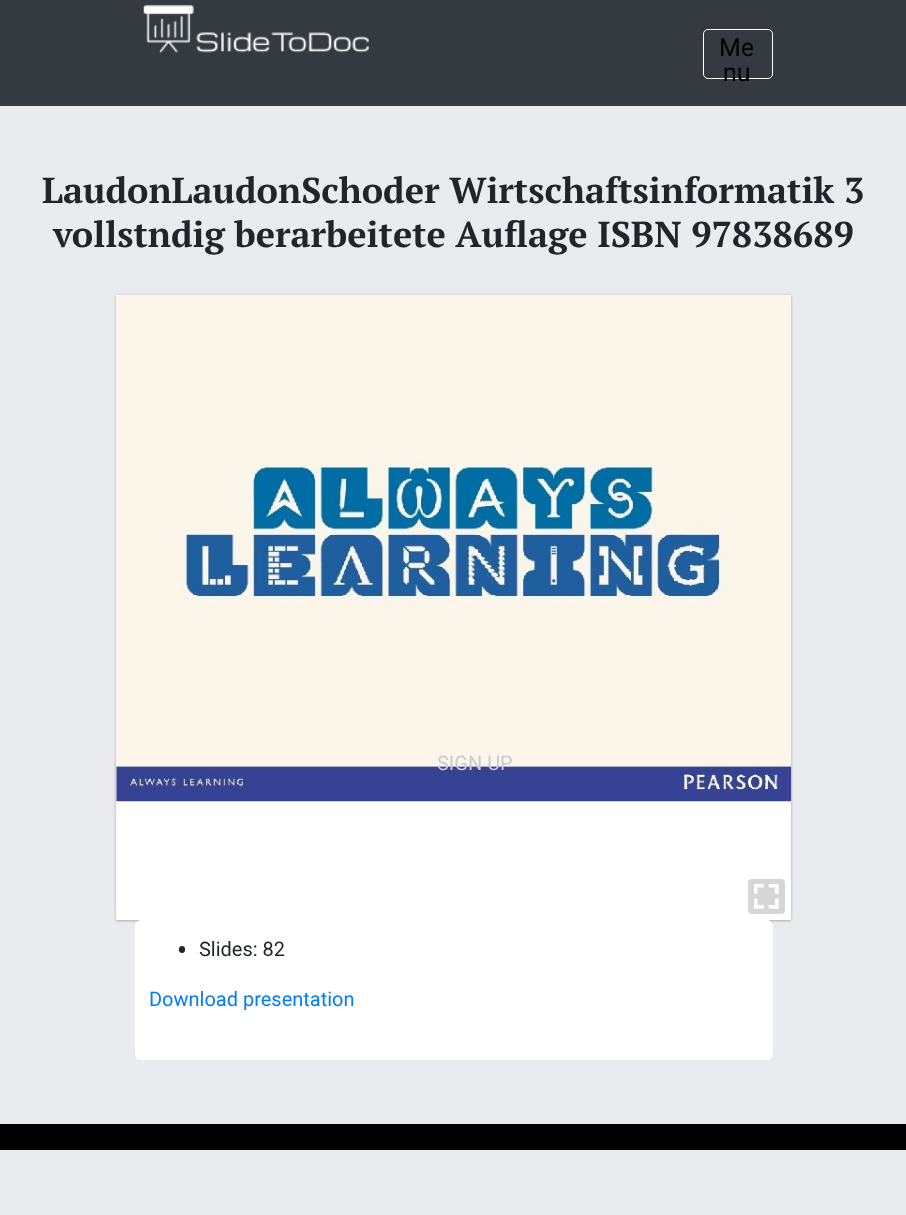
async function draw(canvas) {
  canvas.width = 906
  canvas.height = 1215
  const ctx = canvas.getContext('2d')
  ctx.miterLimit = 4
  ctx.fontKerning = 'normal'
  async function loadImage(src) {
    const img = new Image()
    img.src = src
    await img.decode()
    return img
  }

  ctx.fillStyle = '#e9ebee'
  ctx.fillRect(0, 0, 906, 1215)
  ctx.fillStyle = '#343a40'
  ctx.fillRect(0, 0, 906, 106)
  ctx.drawImage(await loadImage('image0.png'), 143, 4, 226, 49)
  ctx.beginPath()
  ctx.roundRect(703.5, 29.5, 69, 49, 4.5)
  ctx.strokeStyle = '#fff'
  ctx.stroke()
  ctx.font = '25px Roboto'
  ctx.fillStyle = '#000'
  ctx.fillText('Me', 719, 56)
  ctx.fillText('nu', 723, 81)
  ctx.fillStyle = '#ededed'
  ctx.fillRect(0, 268, 906, 1)
  ctx.font = 'bold 36px PT Serif'
  ctx.fillStyle = '#212529'
  ctx.fillText('LaudonLaudonSchoder Wirtschaftsinformatik 3', 42, 203)
  ctx.fillText('vollstndig berarbeitete Auflage ISBN 97838689', 53, 247)
  ctx.fillStyle = '#0000001a'
  ctx.filter = 'blur(2px)'
  ctx.beginPath()
  ctx.rect(116, 295, 675, 625)
  ctx.fill()
  ctx.filter = 'none'
  ctx.fillStyle = '#00000033'
  ctx.filter = 'blur(1px)'
  ctx.beginPath()
  ctx.rect(116, 296, 675, 625)
  ctx.fill()
  ctx.filter = 'none'
  ctx.fillStyle = '#fff'
  ctx.fillRect(116, 295, 675, 625)
  ctx.drawImage(await loadImage('image1.png'), 116, 295, 676, 507)
  ctx.font = '20px Roboto'
  ctx.fillStyle = '#cbc9d3'
  ctx.fillText('SIGN UP', 437, 770)
  ctx.fillStyle = '#d6d6d6'
  ctx.beginPath()
  ctx.roundRect(748, 879, 37, 35, 4)
  ctx.fill()
  ctx.drawImage(await loadImage('image2.png'), 754, 884, 25, 25)
  ctx.fillStyle = '#fff'
  ctx.beginPath()
  ctx.roundRect(135, 920, 638, 140, 6)
  ctx.fill()
  ctx.fillStyle = '#212529'
  ctx.beginPath()
  ctx.roundRect(179, 946, 6, 7, 3)
  ctx.fill()
  ctx.fillText('Slides: 82', 199, 956)
  ctx.fillStyle = '#007bff'
  ctx.fillText('Download presentation', 149, 1006)
  ctx.fillStyle = '#000'
  ctx.fillRect(0, 1124, 906, 26)
}

draw(document.querySelector('canvas'))
